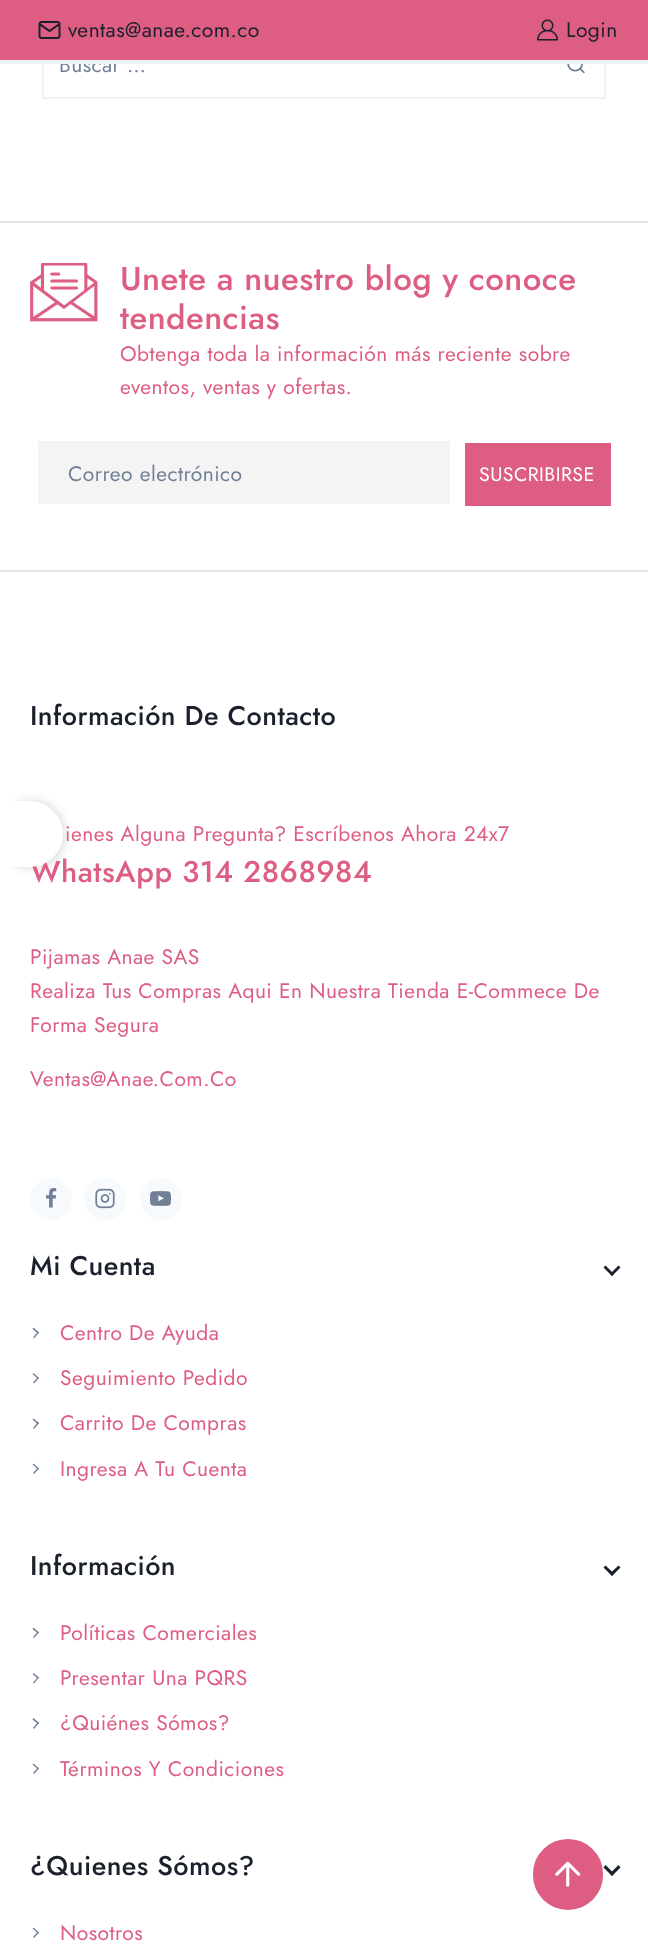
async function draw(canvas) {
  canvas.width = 648
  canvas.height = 1954
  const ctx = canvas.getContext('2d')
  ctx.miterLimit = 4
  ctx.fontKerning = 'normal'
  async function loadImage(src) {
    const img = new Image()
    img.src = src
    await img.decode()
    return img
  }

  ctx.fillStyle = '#fff'
  ctx.fillRect(0, 0, 648, 1954)
  ctx.strokeStyle = '#edf2f7'
  ctx.lineWidth = 2
  ctx.strokeRect(43, 33, 562, 65)
  ctx.letterSpacing = '0.45px'
  ctx.font = '21px Jost'
  ctx.fillStyle = '#718096'
  ctx.fillText('Buscar …', 59, 72)
  ctx.fillStyle = '#dd5e82'
  ctx.fillRect(0, 0, 648, 60)
  ctx.fillStyle = '#edf2f7'
  ctx.fillRect(0, 60, 648, 4)
  ctx.drawImage(await loadImage('image0.png'), 38, 21, 23, 18)
  ctx.fillStyle = '#1a202c'
  ctx.fillText('ventas@anae.com.co', 68, 37)
  ctx.drawImage(await loadImage('image1.png'), 537, 19, 21, 22)
  ctx.fillText('Login', 566, 37)
  ctx.drawImage(await loadImage('image2.png'), 567, 64, 18, 10)
  ctx.fillStyle = '#ddd'
  ctx.filter = 'blur(4px)'
  ctx.beginPath()
  ctx.roundRect(-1, 800, 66, 69, 35)
  ctx.fill()
  ctx.filter = 'none'
  ctx.font = '500 30px Jost'
  ctx.fillStyle = '#dd5e82'
  ctx.fillText('WhatsApp 314 2868984', 30, 882)
  ctx.fillStyle = '#fff'
  ctx.beginPath()
  ctx.roundRect(1, 802, 61, 64, [0, 32, 32, 0])
  ctx.fill()
  ctx.strokeStyle = '#fff'
  ctx.stroke()
  ctx.fillStyle = '#e5e5e5'
  ctx.fillRect(0, 221, 648, 2)
  ctx.fillRect(0, 570, 648, 2)
  ctx.drawImage(await loadImage('image3.png'), 30, 263, 68, 59)
  ctx.font = '500 33px Jost'
  ctx.fillStyle = '#dd5e82'
  ctx.fillText('Unete a nuestro blog y conoce', 120, 290)
  ctx.fillText('tendencias', 120, 329)
  ctx.font = '21px Jost'
  ctx.fillText('Obtenga toda la información más reciente sobre', 120, 361)
  ctx.fillText('eventos, ventas y ofertas.', 120, 394)
  ctx.fillStyle = '#f4f4f4'
  ctx.fillRect(38, 441, 412, 63)
  ctx.fillStyle = '#718096'
  ctx.fillText('Correo electrónico', 68, 481)
  ctx.fillStyle = '#dd5e82'
  ctx.fillRect(465, 443, 146, 63)
  ctx.font = '19.5px Jost'
  ctx.fillStyle = '#fff'
  ctx.fillText('SUSCRIBIRSE', 479, 481)
  ctx.font = '500 27px Jost'
  ctx.fillStyle = '#1a202c'
  ctx.fillText('Información De Contacto', 30, 725)
  ctx.font = '21px Jost'
  ctx.fillStyle = '#dd5e82'
  ctx.fillText('ienes Alguna Pregunta? Escríbenos Ahora 24x7', 65, 841)
  ctx.fillText('Pijamas Anae SAS', 30, 964)
  ctx.fillText('Realiza Tus Compras Aqui En Nuestra Tienda E-Commece De', 30, 998)
  ctx.fillText('Forma Segura', 30, 1032)
  ctx.fillText('Ventas@Anae.Com.Co', 30, 1086)
  ctx.fillStyle = '#f7fafc'
  ctx.beginPath()
  ctx.arc(51, 1199, 21, 0, 2 * Math.PI)
  ctx.fill()
  ctx.drawImage(await loadImage('image4.png'), 46, 1188, 11, 20)
  ctx.beginPath()
  ctx.arc(105, 1199, 21, 0, 2 * Math.PI)
  ctx.fill()
  ctx.drawImage(await loadImage('image5.png'), 95, 1188, 20, 21)
  ctx.beginPath()
  ctx.arc(161, 1199, 21, 0, 2 * Math.PI)
  ctx.fill()
  ctx.drawImage(await loadImage('image6.png'), 150, 1191, 21, 15)
  ctx.font = '500 27px Jost'
  ctx.fillStyle = '#1a202c'
  ctx.fillText('Mi Cuenta', 30, 1275)
  ctx.beginPath()
  ctx.moveTo(620.5, 1267.5)
  ctx.lineTo(612, 1276)
  ctx.lineTo(610, 1274)
  ctx.lineTo(618.5, 1265.5)
  ctx.closePath()
  ctx.fill()
  ctx.beginPath()
  ctx.moveTo(614, 1274)
  ctx.lineTo(612, 1276)
  ctx.lineTo(603.5, 1267.5)
  ctx.lineTo(605.5, 1265.5)
  ctx.closePath()
  ctx.fill()
  ctx.fillStyle = '#718096'
  ctx.beginPath()
  ctx.moveTo(33.5, 1327.5)
  ctx.lineTo(39, 1332.5)
  ctx.lineTo(38, 1333.5)
  ctx.lineTo(32.5, 1329)
  ctx.closePath()
  ctx.fill()
  ctx.beginPath()
  ctx.moveTo(38, 1331.5)
  ctx.lineTo(39, 1332.5)
  ctx.lineTo(34, 1338.5)
  ctx.lineTo(33, 1337.5)
  ctx.closePath()
  ctx.fill()
  ctx.font = '21px Jost'
  ctx.fillStyle = '#dd5e82'
  ctx.fillText('Centro De Ayuda', 60, 1340)
  ctx.fillStyle = '#718096'
  ctx.beginPath()
  ctx.moveTo(33.5, 1373)
  ctx.lineTo(39, 1378)
  ctx.lineTo(38, 1379)
  ctx.lineTo(32.5, 1374)
  ctx.closePath()
  ctx.fill()
  ctx.beginPath()
  ctx.moveTo(38, 1377)
  ctx.lineTo(39, 1378)
  ctx.lineTo(34, 1383.5)
  ctx.lineTo(33, 1382.5)
  ctx.closePath()
  ctx.fill()
  ctx.fillStyle = '#dd5e82'
  ctx.fillText('Seguimiento Pedido', 60, 1385)
  ctx.fillStyle = '#718096'
  ctx.beginPath()
  ctx.moveTo(33.5, 1418.5)
  ctx.lineTo(39, 1423)
  ctx.lineTo(38, 1424.5)
  ctx.lineTo(32.5, 1419.5)
  ctx.closePath()
  ctx.fill()
  ctx.beginPath()
  ctx.moveTo(38, 1422)
  ctx.lineTo(39, 1423)
  ctx.lineTo(34, 1429)
  ctx.lineTo(33, 1428)
  ctx.closePath()
  ctx.fill()
  ctx.fillStyle = '#dd5e82'
  ctx.fillText('Carrito De Compras', 60, 1430)
  ctx.fillStyle = '#718096'
  ctx.beginPath()
  ctx.moveTo(33.5, 1463.5)
  ctx.lineTo(39, 1468.5)
  ctx.lineTo(38, 1469.5)
  ctx.lineTo(32.5, 1464.5)
  ctx.closePath()
  ctx.fill()
  ctx.beginPath()
  ctx.moveTo(38, 1467.5)
  ctx.lineTo(39, 1468.5)
  ctx.lineTo(34, 1474)
  ctx.lineTo(33, 1473)
  ctx.closePath()
  ctx.fill()
  ctx.fillStyle = '#dd5e82'
  ctx.fillText('Ingresa A Tu Cuenta', 60, 1476)
  ctx.font = '500 27px Jost'
  ctx.fillStyle = '#1a202c'
  ctx.fillText('Información', 30, 1575)
  ctx.beginPath()
  ctx.moveTo(620.5, 1567.5)
  ctx.lineTo(612, 1576)
  ctx.lineTo(610, 1573.5)
  ctx.lineTo(618.5, 1565.5)
  ctx.closePath()
  ctx.fill()
  ctx.beginPath()
  ctx.moveTo(614, 1573.5)
  ctx.lineTo(612, 1576)
  ctx.lineTo(603.5, 1567.5)
  ctx.lineTo(605.5, 1565.5)
  ctx.closePath()
  ctx.fill()
  ctx.fillStyle = '#718096'
  ctx.beginPath()
  ctx.moveTo(33.5, 1627.5)
  ctx.lineTo(39, 1632.5)
  ctx.lineTo(38, 1633.5)
  ctx.lineTo(32.5, 1629)
  ctx.closePath()
  ctx.fill()
  ctx.beginPath()
  ctx.moveTo(38, 1631.5)
  ctx.lineTo(39, 1632.5)
  ctx.lineTo(34, 1638)
  ctx.lineTo(33, 1637)
  ctx.closePath()
  ctx.fill()
  ctx.font = '21px Jost'
  ctx.fillStyle = '#dd5e82'
  ctx.fillText('Políticas Comerciales', 60, 1640)
  ctx.fillStyle = '#718096'
  ctx.beginPath()
  ctx.moveTo(33.5, 1673)
  ctx.lineTo(39, 1677.5)
  ctx.lineTo(38, 1679)
  ctx.lineTo(32.5, 1674)
  ctx.closePath()
  ctx.fill()
  ctx.beginPath()
  ctx.moveTo(38, 1677)
  ctx.lineTo(39, 1677.5)
  ctx.lineTo(34, 1683.5)
  ctx.lineTo(33, 1682.5)
  ctx.closePath()
  ctx.fill()
  ctx.fillStyle = '#dd5e82'
  ctx.fillText('Presentar Una PQRS', 60, 1685)
  ctx.fillStyle = '#718096'
  ctx.beginPath()
  ctx.moveTo(33.5, 1718)
  ctx.lineTo(39, 1723)
  ctx.lineTo(38, 1724)
  ctx.lineTo(32.5, 1719.5)
  ctx.closePath()
  ctx.fill()
  ctx.beginPath()
  ctx.moveTo(38, 1722)
  ctx.lineTo(39, 1723)
  ctx.lineTo(34, 1729)
  ctx.lineTo(33, 1728)
  ctx.closePath()
  ctx.fill()
  ctx.fillStyle = '#dd5e82'
  ctx.fillText('¿Quiénes Sómos?', 60, 1730)
  ctx.fillStyle = '#718096'
  ctx.beginPath()
  ctx.moveTo(33.5, 1763.5)
  ctx.lineTo(39, 1768.5)
  ctx.lineTo(38, 1769.5)
  ctx.lineTo(32.5, 1764.5)
  ctx.closePath()
  ctx.fill()
  ctx.beginPath()
  ctx.moveTo(38, 1767.5)
  ctx.lineTo(39, 1768.5)
  ctx.lineTo(34, 1774)
  ctx.lineTo(33, 1773)
  ctx.closePath()
  ctx.fill()
  ctx.fillStyle = '#dd5e82'
  ctx.fillText('Términos Y Condiciones', 60, 1776)
  ctx.font = '500 27px Jost'
  ctx.fillStyle = '#1a202c'
  ctx.fillText('¿Quienes Sómos?', 30, 1875)
  ctx.beginPath()
  ctx.moveTo(620.5, 1867.5)
  ctx.lineTo(612, 1876)
  ctx.lineTo(610, 1873.5)
  ctx.lineTo(618.5, 1865)
  ctx.closePath()
  ctx.fill()
  ctx.beginPath()
  ctx.moveTo(614, 1873.5)
  ctx.lineTo(612, 1876)
  ctx.lineTo(603.5, 1867.5)
  ctx.lineTo(605.5, 1865)
  ctx.closePath()
  ctx.fill()
  ctx.fillStyle = '#718096'
  ctx.beginPath()
  ctx.moveTo(33.5, 1927.5)
  ctx.lineTo(39, 1932.5)
  ctx.lineTo(38, 1933.5)
  ctx.lineTo(32.5, 1928.5)
  ctx.closePath()
  ctx.fill()
  ctx.beginPath()
  ctx.moveTo(38, 1931.5)
  ctx.lineTo(39, 1932.5)
  ctx.lineTo(34, 1938)
  ctx.lineTo(33, 1937)
  ctx.closePath()
  ctx.fill()
  ctx.font = '21px Jost'
  ctx.fillStyle = '#dd5e82'
  ctx.fillText('Nosotros', 60, 1940)
  ctx.beginPath()
  ctx.roundRect(534, 1840, 68, 69, 34)
  ctx.fill()
  ctx.strokeStyle = '#dd5e82'
  ctx.stroke()
  ctx.drawImage(await loadImage('image7.png'), 555, 1861, 26, 26)
}

draw(document.querySelector('canvas'))
